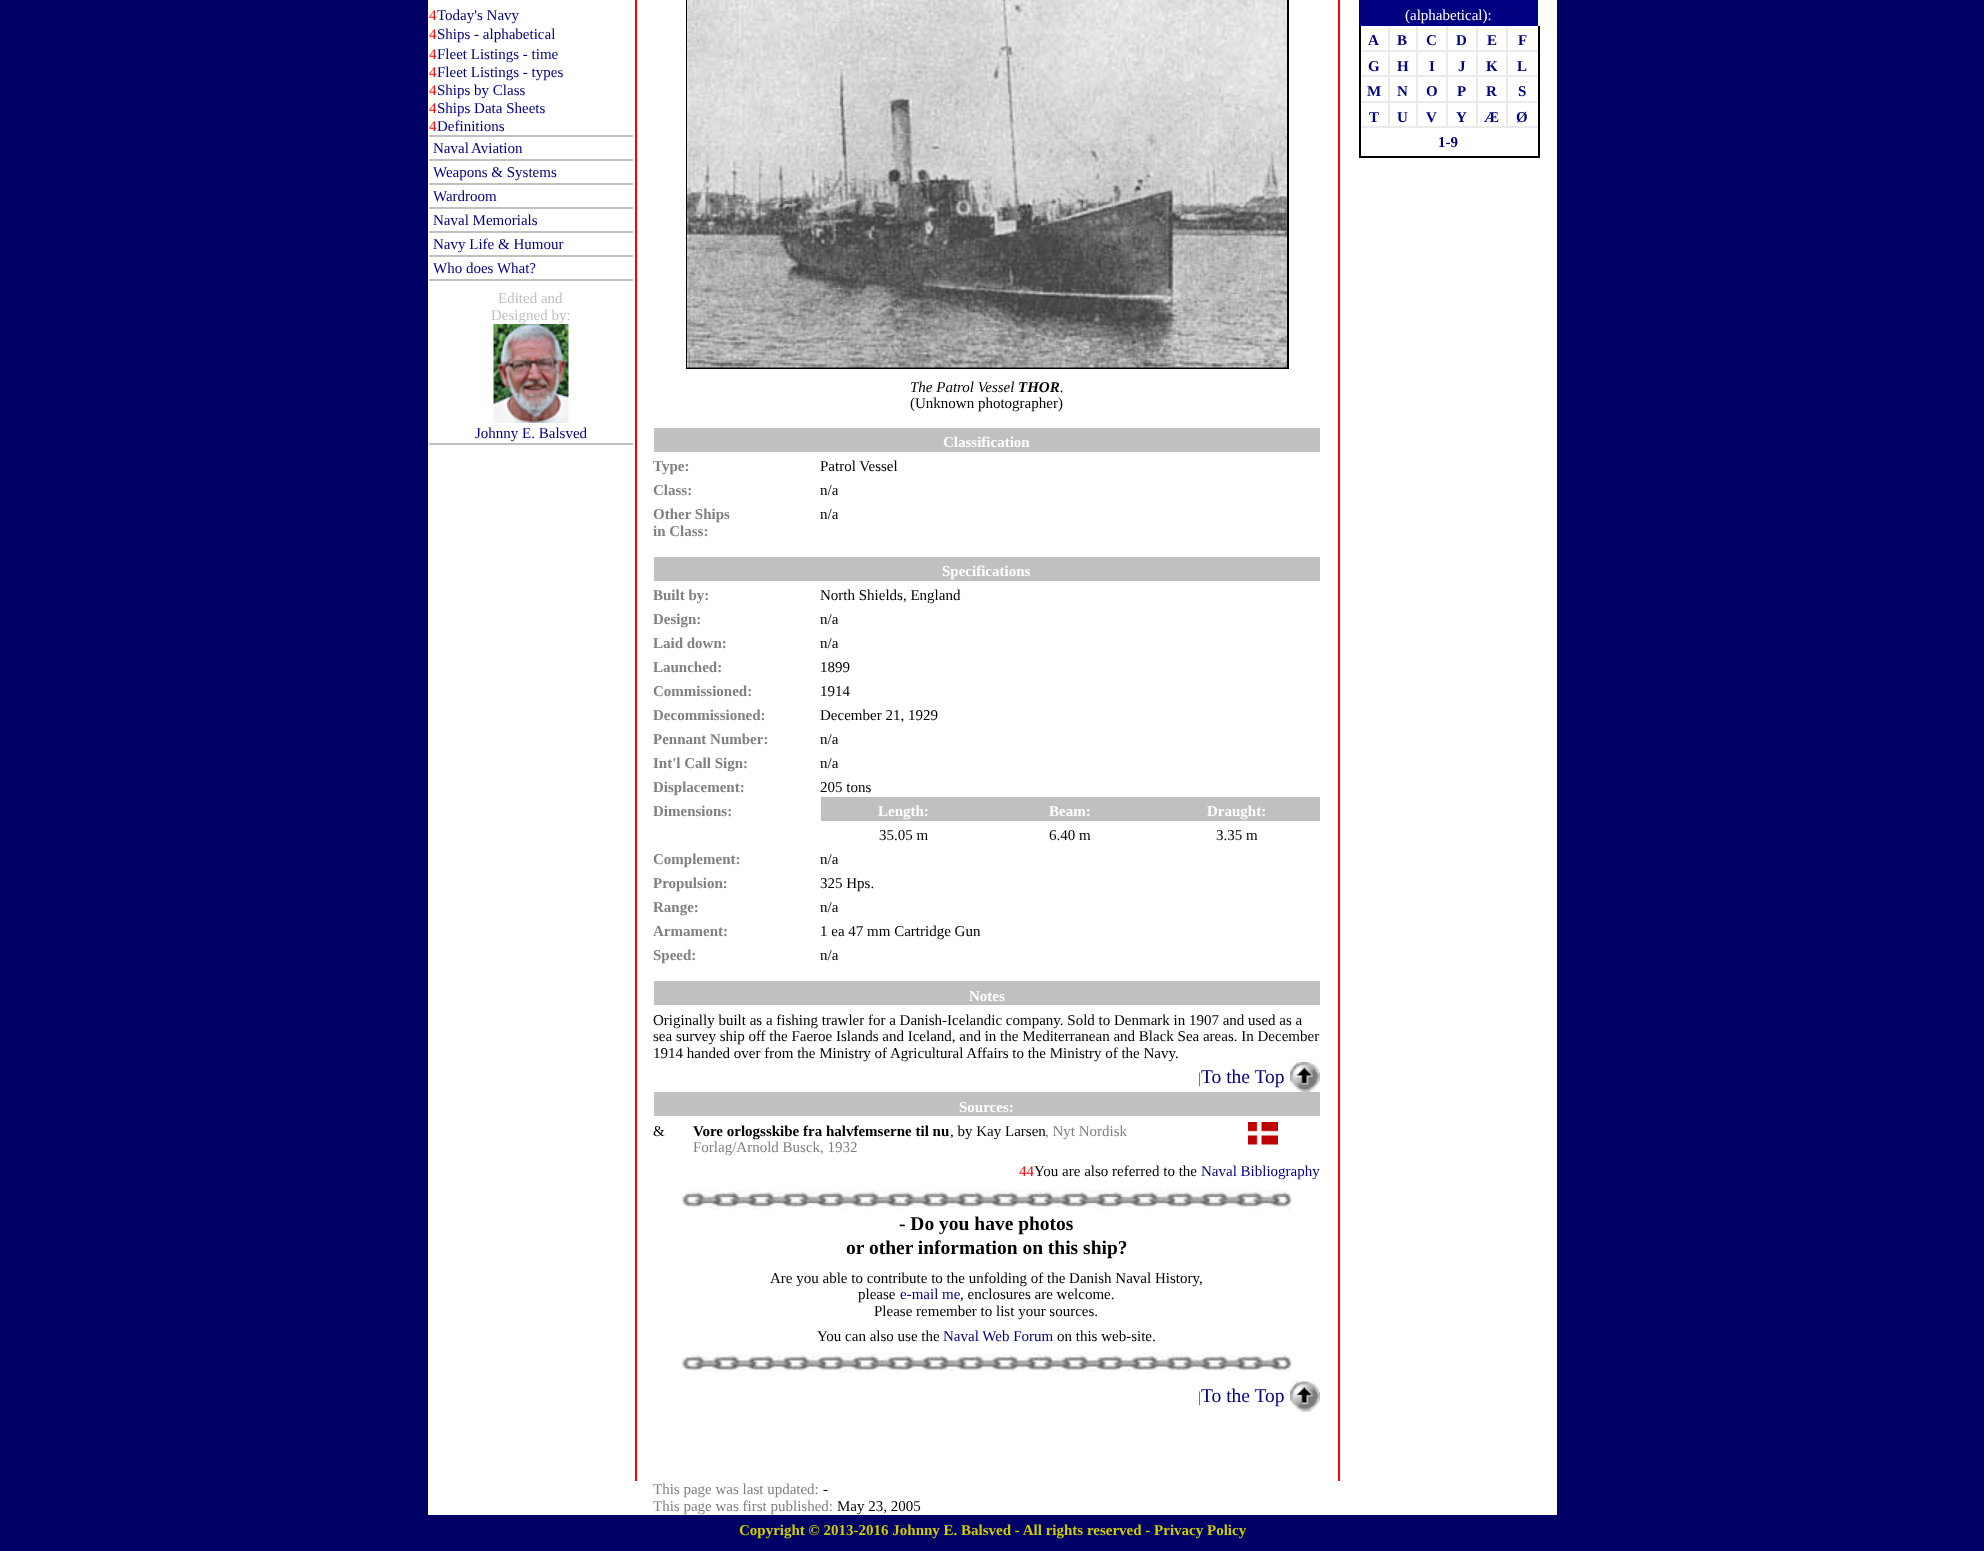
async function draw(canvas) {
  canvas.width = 1984
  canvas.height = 1551
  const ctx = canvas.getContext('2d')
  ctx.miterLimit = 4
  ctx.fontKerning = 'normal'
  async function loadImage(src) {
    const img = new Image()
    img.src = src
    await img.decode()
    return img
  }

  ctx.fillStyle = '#006'
  ctx.fillRect(0, 0, 1984, 1551)
  ctx.fillStyle = '#fff'
  ctx.fillRect(428, 0, 1129, 1515)
  ctx.fillStyle = '#f00'
  ctx.fillRect(1338, 0, 2, 1481)
  ctx.fillRect(635, 0, 2, 1481)
  ctx.fillStyle = '#c0c0c0'
  ctx.fillRect(429, 135, 204, 2)
  ctx.font = '15px Liberation Serif'
  ctx.fillStyle = '#f00'
  ctx.fillText('4', 429, 20)
  ctx.fillStyle = '#000080'
  ctx.fillText('Today\'s Navy', 437, 20)
  ctx.fillStyle = '#f00'
  ctx.fillText('4', 429, 39)
  ctx.fillStyle = '#000080'
  ctx.fillText('Ships - alphabetical', 437, 39)
  ctx.fillStyle = '#f00'
  ctx.fillText('4', 429, 59)
  ctx.fillStyle = '#000080'
  ctx.fillText('Fleet Listings - time', 437, 59)
  ctx.fillStyle = '#f00'
  ctx.fillText('4', 429, 77)
  ctx.fillStyle = '#000080'
  ctx.fillText('Fleet Listings - types', 437, 77)
  ctx.fillStyle = '#f00'
  ctx.fillText('4', 429, 95)
  ctx.fillStyle = '#000080'
  ctx.fillText('Ships by Class', 437, 95)
  ctx.fillStyle = '#f00'
  ctx.fillText('4', 429, 113)
  ctx.fillStyle = '#000080'
  ctx.fillText('Ships Data Sheets', 437, 113)
  ctx.fillStyle = '#f00'
  ctx.fillText('4', 429, 131)
  ctx.fillStyle = '#000080'
  ctx.fillText('Definitions', 437, 131)
  ctx.fillStyle = '#c0c0c0'
  ctx.fillRect(429, 159, 204, 2)
  ctx.fillStyle = '#000080'
  ctx.fillText('Naval', 433, 153)
  ctx.fillText('Aviation', 471, 153)
  ctx.fillStyle = '#c0c0c0'
  ctx.fillRect(429, 183, 204, 2)
  ctx.fillStyle = '#000080'
  ctx.fillText('Weapons & Systems', 433, 177)
  ctx.fillStyle = '#c0c0c0'
  ctx.fillRect(429, 207, 204, 2)
  ctx.fillStyle = '#000080'
  ctx.fillText('Wardroom', 433, 201)
  ctx.fillStyle = '#c0c0c0'
  ctx.fillRect(429, 231, 204, 2)
  ctx.fillStyle = '#000080'
  ctx.fillText('Naval Memorials', 433, 225)
  ctx.fillStyle = '#c0c0c0'
  ctx.fillRect(429, 255, 204, 2)
  ctx.fillStyle = '#000080'
  ctx.fillText('Navy Life & Humour', 433, 249)
  ctx.fillStyle = '#c0c0c0'
  ctx.fillRect(429, 279, 204, 2)
  ctx.fillStyle = '#000080'
  ctx.fillText('Who does What?', 433, 273)
  ctx.fillStyle = '#c0c0c0'
  ctx.fillRect(429, 443, 204, 2)
  ctx.fillText('Edited and', 498, 303)
  ctx.fillText('Designed by:', 491, 320)
  ctx.drawImage(await loadImage('image0.png'), 493, 324, 76, 99)
  ctx.fillStyle = '#000080'
  ctx.fillText('Johnny E. Balsved', 475, 438)
  ctx.fillRect(1359, 0, 179, 26)
  ctx.fillStyle = '#fff'
  ctx.fillText('(alphabetical):', 1405, 20)
  ctx.fillStyle = '#000'
  ctx.fillRect(1538, 26, 2, 132)
  ctx.fillRect(1359, 156, 180, 2)
  ctx.fillStyle = '#ebebeb'
  ctx.fillRect(1506, 126, 32, 2)
  ctx.fillRect(1506, 101, 2, 27)
  ctx.fillRect(1506, 101, 32, 2)
  ctx.fillRect(1506, 75, 2, 27)
  ctx.fillRect(1506, 75, 32, 2)
  ctx.fillRect(1506, 50, 2, 27)
  ctx.fillRect(1506, 50, 32, 2)
  ctx.fillRect(1506, 26, 2, 25)
  ctx.fillRect(1476, 126, 32, 2)
  ctx.fillRect(1476, 101, 2, 27)
  ctx.fillRect(1476, 101, 32, 2)
  ctx.fillRect(1476, 75, 2, 27)
  ctx.fillRect(1476, 75, 32, 2)
  ctx.fillRect(1476, 50, 2, 27)
  ctx.fillRect(1476, 50, 32, 2)
  ctx.fillRect(1476, 26, 2, 25)
  ctx.fillRect(1446, 126, 32, 2)
  ctx.fillRect(1446, 101, 2, 27)
  ctx.fillRect(1446, 101, 32, 2)
  ctx.fillRect(1446, 75, 2, 27)
  ctx.fillRect(1446, 75, 32, 2)
  ctx.fillRect(1446, 50, 2, 27)
  ctx.fillRect(1446, 50, 32, 2)
  ctx.fillRect(1446, 26, 2, 25)
  ctx.fillRect(1416, 126, 32, 2)
  ctx.fillRect(1416, 101, 2, 27)
  ctx.fillRect(1416, 101, 32, 2)
  ctx.fillRect(1416, 75, 2, 27)
  ctx.fillRect(1416, 75, 32, 2)
  ctx.fillRect(1416, 50, 2, 27)
  ctx.fillRect(1416, 50, 32, 2)
  ctx.fillRect(1416, 26, 2, 25)
  ctx.fillRect(1388, 126, 30, 2)
  ctx.fillRect(1388, 101, 2, 27)
  ctx.fillRect(1388, 101, 30, 2)
  ctx.fillRect(1388, 75, 2, 27)
  ctx.fillRect(1388, 75, 30, 2)
  ctx.fillRect(1388, 50, 2, 27)
  ctx.fillRect(1388, 50, 30, 2)
  ctx.fillRect(1388, 26, 2, 25)
  ctx.fillRect(1359, 50, 30, 2)
  ctx.fillRect(1359, 75, 30, 2)
  ctx.fillRect(1359, 101, 30, 2)
  ctx.fillRect(1359, 126, 30, 2)
  ctx.fillStyle = '#000'
  ctx.fillRect(1359, 26, 2, 132)
  ctx.font = 'bold 15px Liberation Serif'
  ctx.fillStyle = '#000080'
  ctx.fillText('A', 1368, 45)
  ctx.fillText('B', 1397, 45)
  ctx.fillText('C', 1426, 45)
  ctx.fillText('D', 1456, 45)
  ctx.fillText('E', 1487, 45)
  ctx.fillText('F', 1518, 45)
  ctx.fillText('G', 1368, 71)
  ctx.fillText('H', 1397, 71)
  ctx.fillText('I', 1429, 71)
  ctx.fillText('J', 1458, 71)
  ctx.fillText('K', 1486, 71)
  ctx.fillText('L', 1517, 71)
  ctx.fillText('M', 1367, 96)
  ctx.fillText('N', 1397, 96)
  ctx.fillText('O', 1426, 96)
  ctx.fillText('P', 1457, 96)
  ctx.fillText('R', 1486, 96)
  ctx.fillText('S', 1518, 96)
  ctx.fillText('T', 1369, 122)
  ctx.fillText('U', 1397, 122)
  ctx.fillText('V', 1426, 122)
  ctx.fillText('Y', 1456, 122)
  ctx.fillText('Æ', 1484, 122)
  ctx.fillText('Ø', 1516, 122)
  ctx.fillText('1-9', 1438, 147)
  ctx.strokeStyle = '#000'
  ctx.lineWidth = 2
  ctx.strokeRect(687, -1, 601, 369)
  ctx.drawImage(await loadImage('image1.png'), 687, 0, 600, 368)
  ctx.font = 'italic 15px Liberation Serif'
  ctx.fillStyle = '#000'
  ctx.fillText('The Patrol Vessel', 910, 392)
  ctx.font = 'italic bold 15px Liberation Serif'
  ctx.fillText('THOR', 1018, 392)
  ctx.font = 'italic 15px Liberation Serif'
  ctx.fillText('.', 1060, 392)
  ctx.font = '15px Liberation Serif'
  ctx.fillText('(Unknown photographer)', 910, 408)
  ctx.fillStyle = '#c0c0c0'
  ctx.fillRect(654, 428, 666, 24)
  ctx.font = 'bold 15px Liberation Serif'
  ctx.fillStyle = '#fff'
  ctx.fillText('Classification', 943, 447)
  ctx.fillStyle = '#808080'
  ctx.fillText('Type:', 653, 471)
  ctx.font = '15px Liberation Serif'
  ctx.fillStyle = '#000'
  ctx.fillText('Patrol Vessel', 820, 471)
  ctx.font = 'bold 15px Liberation Serif'
  ctx.fillStyle = '#808080'
  ctx.fillText('Class:', 653, 495)
  ctx.font = '15px Liberation Serif'
  ctx.fillStyle = '#000'
  ctx.fillText('n/a', 820, 495)
  ctx.font = 'bold 15px Liberation Serif'
  ctx.fillStyle = '#808080'
  ctx.fillText('Other Ships', 653, 519)
  ctx.fillText('in Class:', 653, 536)
  ctx.font = '15px Liberation Serif'
  ctx.fillStyle = '#000'
  ctx.fillText('n/a', 820, 519)
  ctx.fillStyle = '#c0c0c0'
  ctx.fillRect(654, 557, 666, 24)
  ctx.font = 'bold 15px Liberation Serif'
  ctx.fillStyle = '#fff'
  ctx.fillText('Specifications', 942, 576)
  ctx.fillStyle = '#808080'
  ctx.fillText('Built by:', 653, 600)
  ctx.font = '15px Liberation Serif'
  ctx.fillStyle = '#000'
  ctx.fillText('North Shields, England', 820, 600)
  ctx.font = 'bold 15px Liberation Serif'
  ctx.fillStyle = '#808080'
  ctx.fillText('Design:', 653, 624)
  ctx.font = '15px Liberation Serif'
  ctx.fillStyle = '#000'
  ctx.fillText('n/a', 820, 624)
  ctx.font = 'bold 15px Liberation Serif'
  ctx.fillStyle = '#808080'
  ctx.fillText('Laid down:', 653, 648)
  ctx.font = '15px Liberation Serif'
  ctx.fillStyle = '#000'
  ctx.fillText('n/a', 820, 648)
  ctx.font = 'bold 15px Liberation Serif'
  ctx.fillStyle = '#808080'
  ctx.fillText('Launched:', 653, 672)
  ctx.font = '15px Liberation Serif'
  ctx.fillStyle = '#000'
  ctx.fillText('1899', 820, 672)
  ctx.font = 'bold 15px Liberation Serif'
  ctx.fillStyle = '#808080'
  ctx.fillText('Commissioned:', 653, 696)
  ctx.font = '15px Liberation Serif'
  ctx.fillStyle = '#000'
  ctx.fillText('1914', 820, 696)
  ctx.font = 'bold 15px Liberation Serif'
  ctx.fillStyle = '#808080'
  ctx.fillText('Decommissioned:', 653, 720)
  ctx.font = '15px Liberation Serif'
  ctx.fillStyle = '#000'
  ctx.fillText('December 21, 1929', 820, 720)
  ctx.font = 'bold 15px Liberation Serif'
  ctx.fillStyle = '#808080'
  ctx.fillText('Pennant Number:', 653, 744)
  ctx.font = '15px Liberation Serif'
  ctx.fillStyle = '#000'
  ctx.fillText('n/a', 820, 744)
  ctx.font = 'bold 15px Liberation Serif'
  ctx.fillStyle = '#808080'
  ctx.fillText('Int\'l Call Sign:', 653, 768)
  ctx.font = '15px Liberation Serif'
  ctx.fillStyle = '#000'
  ctx.fillText('n/a', 820, 768)
  ctx.font = 'bold 15px Liberation Serif'
  ctx.fillStyle = '#808080'
  ctx.fillText('Displacement:', 653, 792)
  ctx.font = '15px Liberation Serif'
  ctx.fillStyle = '#000'
  ctx.fillText('205 tons', 820, 792)
  ctx.font = 'bold 15px Liberation Serif'
  ctx.fillStyle = '#808080'
  ctx.fillText('Dimensions:', 653, 816)
  ctx.fillStyle = '#c0c0c0'
  ctx.fillRect(821, 797, 499, 24)
  ctx.fillStyle = '#fff'
  ctx.fillText('Length:', 878, 816)
  ctx.fillText('Beam:', 1049, 816)
  ctx.fillText('Draught:', 1207, 816)
  ctx.font = '15px Liberation Serif'
  ctx.fillStyle = '#000'
  ctx.fillText('35.05 m', 879, 840)
  ctx.fillText('6.40 m', 1049, 840)
  ctx.fillText('3.35 m', 1216, 840)
  ctx.font = 'bold 15px Liberation Serif'
  ctx.fillStyle = '#808080'
  ctx.fillText('Complement:', 653, 864)
  ctx.font = '15px Liberation Serif'
  ctx.fillStyle = '#000'
  ctx.fillText('n/a', 820, 864)
  ctx.font = 'bold 15px Liberation Serif'
  ctx.fillStyle = '#808080'
  ctx.fillText('Propulsion:', 653, 888)
  ctx.font = '15px Liberation Serif'
  ctx.fillStyle = '#000'
  ctx.fillText('325 Hps.', 820, 888)
  ctx.font = 'bold 15px Liberation Serif'
  ctx.fillStyle = '#808080'
  ctx.fillText('Range:', 653, 912)
  ctx.font = '15px Liberation Serif'
  ctx.fillStyle = '#000'
  ctx.fillText('n/a', 820, 912)
  ctx.font = 'bold 15px Liberation Serif'
  ctx.fillStyle = '#808080'
  ctx.fillText('Armament:', 653, 936)
  ctx.font = '15px Liberation Serif'
  ctx.fillStyle = '#000'
  ctx.fillText('1 ea 47 mm Cartridge Gun', 820, 936)
  ctx.font = 'bold 15px Liberation Serif'
  ctx.fillStyle = '#808080'
  ctx.fillText('Speed:', 653, 960)
  ctx.font = '15px Liberation Serif'
  ctx.fillStyle = '#000'
  ctx.fillText('n/a', 820, 960)
  ctx.fillStyle = '#c0c0c0'
  ctx.fillRect(654, 981, 666, 24)
  ctx.font = 'bold 15px Liberation Serif'
  ctx.fillStyle = '#fff'
  ctx.fillText('Notes', 969, 1001)
  ctx.font = '15px Liberation Serif'
  ctx.fillStyle = '#000'
  ctx.fillText('Originally built as a fishing trawler for a Danish-Icelandic company. Sold to Denmark in 1907 and used as a', 653, 1025)
  ctx.fillText('sea survey ship off the Faeroe Islands and Iceland, and in the Mediterranean and Black Sea areas. In December', 653, 1041)
  ctx.fillText('1914 handed over from the Ministry of Agricultural Affairs to the Ministry of the Navy.', 653, 1058)
  ctx.fillStyle = '#f00'
  ctx.fillText('|', 1198, 1083)
  ctx.font = '19.5px Liberation Serif'
  ctx.fillStyle = '#000080'
  ctx.fillText('To the Top', 1201, 1083)
  ctx.drawImage(await loadImage('image2.png'), 1290, 1062, 30, 30)
  ctx.fillStyle = '#c0c0c0'
  ctx.fillRect(654, 1092, 666, 24)
  ctx.font = 'bold 15px Liberation Serif'
  ctx.fillStyle = '#fff'
  ctx.fillText('Sources:', 959, 1112)
  ctx.font = '15px Liberation Serif'
  ctx.fillStyle = '#000'
  ctx.fillText('&', 653, 1136)
  ctx.font = 'bold 15px Liberation Serif'
  ctx.fillText('Vore orlogsskibe fra halvfemserne til nu', 693, 1136)
  ctx.font = '15px Liberation Serif'
  ctx.fillText(', by Kay Larsen', 950, 1136)
  ctx.fillStyle = '#808080'
  ctx.fillText(', Nyt Nordisk', 1045, 1136)
  ctx.fillText('Forlag/Arnold Busck, 1932', 693, 1152)
  ctx.drawImage(await loadImage('image3.png'), 1248, 1122, 30, 23)
  ctx.fillStyle = '#f00'
  ctx.fillText('44', 1019, 1176)
  ctx.fillStyle = '#000'
  ctx.fillText('You are also referred to the', 1034, 1176)
  ctx.fillStyle = '#000080'
  ctx.fillText('Naval Bibliography', 1201, 1176)
  ctx.drawImage(await loadImage('image4.png'), 681, 1189, 611, 20)
  ctx.font = 'bold 19.5px Liberation Serif'
  ctx.fillStyle = '#000'
  ctx.fillText('- Do you have photos', 899, 1230)
  ctx.fillText('or other information on this ship?', 846, 1254)
  ctx.font = '15px Liberation Serif'
  ctx.fillText('Are you able to contribute to the unfolding of the Danish Naval History,', 770, 1283)
  ctx.fillText('please', 858, 1299)
  ctx.fillStyle = '#000080'
  ctx.fillText('e-mail me', 900, 1299)
  ctx.fillStyle = '#000'
  ctx.fillText(', enclosures are welcome.', 960, 1299)
  ctx.fillText('Please remember to list your sources.', 874, 1316)
  ctx.fillText('You can also use the', 817, 1341)
  ctx.fillStyle = '#000080'
  ctx.fillText('Naval Web Forum', 943, 1341)
  ctx.fillStyle = '#000'
  ctx.fillText('on this web-site.', 1057, 1341)
  ctx.drawImage(await loadImage('image5.png'), 681, 1353, 611, 20)
  ctx.fillStyle = '#f00'
  ctx.fillText('|', 1198, 1402)
  ctx.font = '19.5px Liberation Serif'
  ctx.fillStyle = '#000080'
  ctx.fillText('To the Top', 1201, 1402)
  ctx.drawImage(await loadImage('image6.png'), 1290, 1381, 30, 31)
  ctx.font = '15px Liberation Serif'
  ctx.fillStyle = '#808080'
  ctx.fillText('This page was last updated:', 653, 1494)
  ctx.fillStyle = '#000'
  ctx.fillText('-', 823, 1494)
  ctx.fillStyle = '#808080'
  ctx.fillText('This page was first published:', 653, 1511)
  ctx.fillStyle = '#000'
  ctx.fillText('May 23, 2005', 837, 1511)
  ctx.font = 'bold 15px Liberation Serif'
  ctx.fillStyle = '#cc0'
  ctx.fillText('Copyright © 2013-2016 Johnny E. Balsved - All rights reserved - Privacy Policy', 739, 1535)
}

draw(document.querySelector('canvas'))
